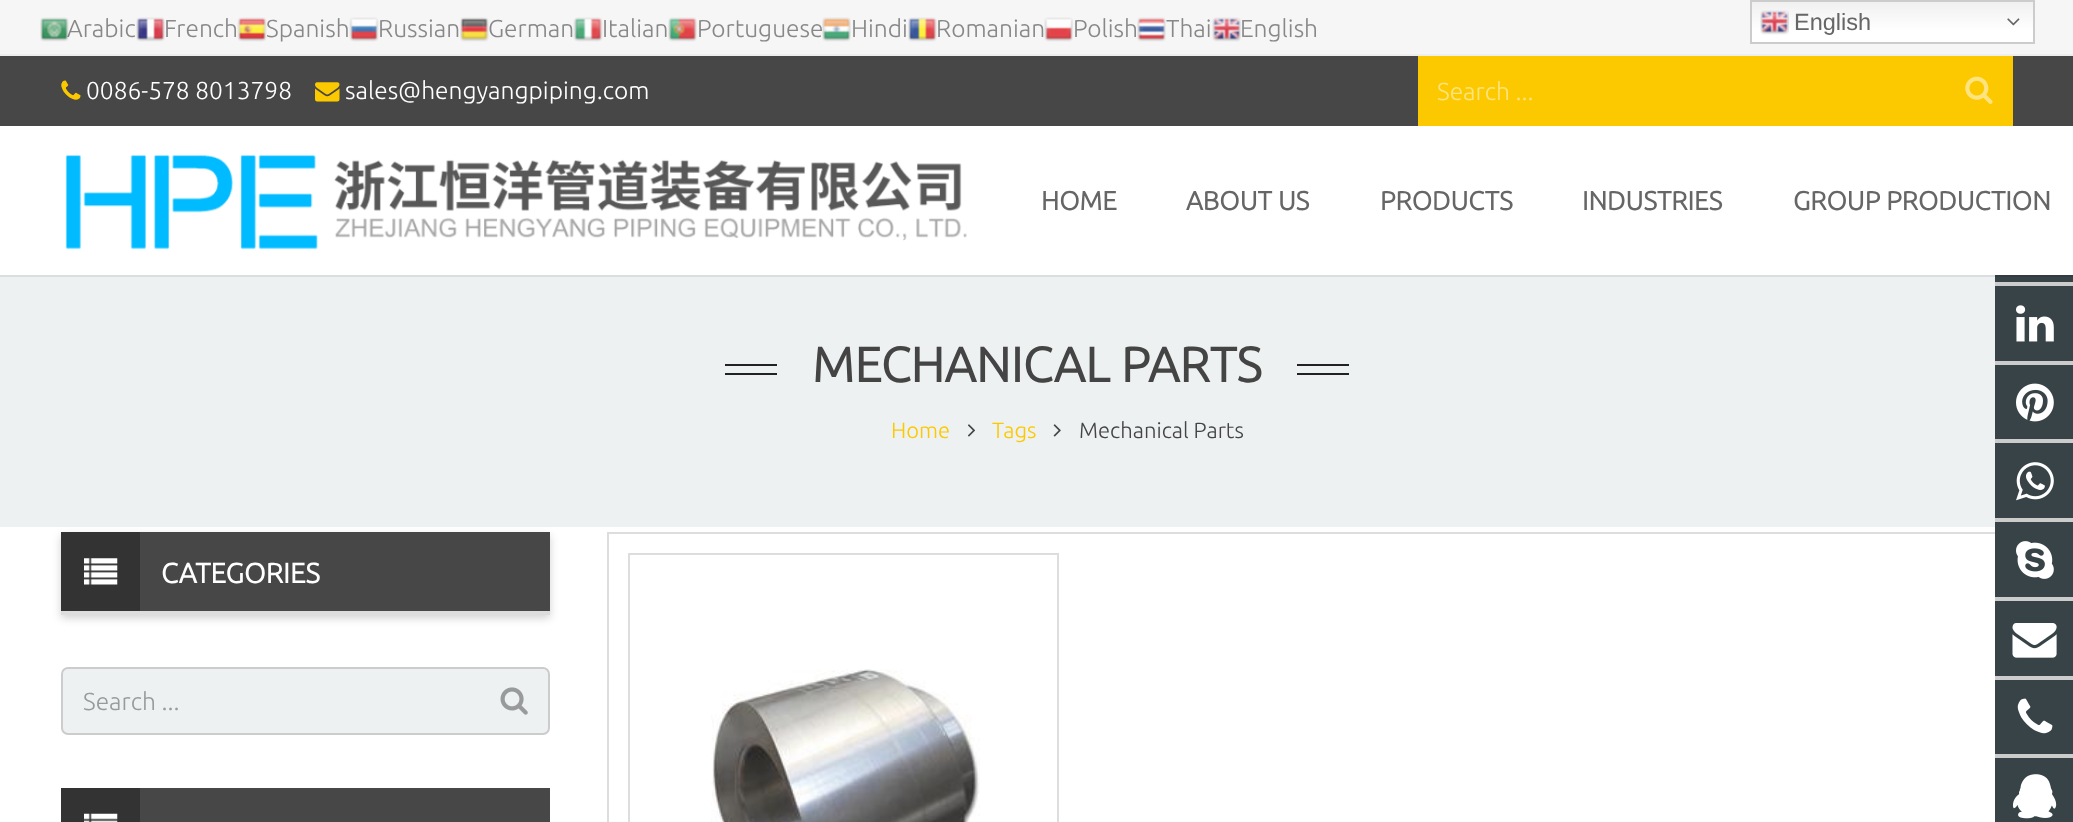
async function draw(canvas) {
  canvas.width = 2073
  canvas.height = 822
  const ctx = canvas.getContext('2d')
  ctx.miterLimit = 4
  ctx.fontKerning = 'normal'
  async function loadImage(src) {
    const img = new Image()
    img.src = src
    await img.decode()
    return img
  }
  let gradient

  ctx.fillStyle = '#fff'
  ctx.fillRect(0, 0, 2073, 822)
  ctx.fillStyle = '#f6f6f6'
  ctx.fillRect(0, 0, 2073, 54)
  ctx.fillStyle = '#eee'
  ctx.fillRect(0, 54, 2073, 2)
  ctx.font = '300 24.5px Ubuntu'
  ctx.fillStyle = '#888'
  ctx.fillText('Arabic', 67, 37)
  ctx.drawImage(await loadImage('image0.png'), 40, 17, 29, 25)
  ctx.drawImage(await loadImage('image1.png'), 136, 17, 29, 25)
  ctx.fillText('French', 164, 37)
  ctx.drawImage(await loadImage('image2.png'), 237, 17, 30, 25)
  ctx.fillText('Spanish', 266, 37)
  ctx.drawImage(await loadImage('image3.png'), 349, 17, 30, 25)
  ctx.fillText('Russian', 378, 37)
  ctx.drawImage(await loadImage('image4.png'), 460, 17, 29, 25)
  ctx.fillText('German', 488, 37)
  ctx.drawImage(await loadImage('image5.png'), 573, 17, 30, 25)
  ctx.fillText('Italian', 602, 37)
  ctx.drawImage(await loadImage('image6.png'), 668, 17, 29, 25)
  ctx.fillText('Portuguese', 697, 37)
  ctx.drawImage(await loadImage('image7.png'), 822, 17, 29, 25)
  ctx.fillText('Hindi', 851, 37)
  ctx.drawImage(await loadImage('image8.png'), 908, 17, 29, 25)
  ctx.fillText('Romanian', 936, 37)
  ctx.drawImage(await loadImage('image9.png'), 1044, 17, 29, 25)
  ctx.fillText('Polish', 1073, 37)
  ctx.drawImage(await loadImage('image10.png'), 1137, 17, 29, 25)
  ctx.fillText('Thai', 1166, 37)
  ctx.drawImage(await loadImage('image11.png'), 1212, 17, 29, 25)
  ctx.fillText('English', 1240, 37)
  gradient = ctx.createLinearGradient(1893, 0, 1893, 44)
  gradient.addColorStop(0, '#efefef')
  gradient.addColorStop(0.7, '#fff')
  ctx.fillStyle = gradient
  ctx.fillRect(1752, 2, 281, 40)
  ctx.strokeStyle = '#ccc'
  ctx.lineWidth = 2
  ctx.strokeRect(1751, 1, 283, 42)
  ctx.drawImage(await loadImage('image12.png'), 1760, 10, 29, 25)
  ctx.font = '23.5px Liberation Sans'
  ctx.fillStyle = '#666'
  ctx.fillText('English', 1794, 30)
  ctx.drawImage(await loadImage('image13.png'), 2007, 18, 13, 8)
  ctx.fillStyle = '#474747'
  ctx.fillRect(0, 56, 2073, 70)
  ctx.drawImage(await loadImage('image14.png'), 61, 80, 20, 20)
  ctx.font = '300 24.5px Ubuntu'
  ctx.fillStyle = '#fff'
  ctx.fillText('0086-578 8013798', 86, 99)
  ctx.drawImage(await loadImage('image15.png'), 315, 82, 25, 20)
  ctx.fillText('sales@hengyangpiping.com', 345, 99)
  ctx.fillStyle = '#fcc900'
  ctx.fillRect(1418, 56, 595, 70)
  ctx.fillStyle = '#fee480'
  ctx.fillText('Search ...', 1437, 100)
  ctx.drawImage(await loadImage('image16.png'), 1965, 76, 28, 28)
  ctx.fillStyle = '#0000002e'
  ctx.filter = 'blur(4.5px)'
  ctx.beginPath()
  ctx.rect(61, 536, 489, 82)
  ctx.fill()
  ctx.filter = 'none'
  ctx.fillStyle = '#edf1f2'
  ctx.fillRect(0, 275, 1995, 252)
  ctx.strokeStyle = '#ddd'
  ctx.strokeRect(608, 533, 1404, 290)
  ctx.fillStyle = '#384347'
  ctx.fillRect(1995, 275, 78, 547)
  ctx.fillStyle = '#00000014'
  ctx.beginPath()
  ctx.moveTo(0, 275)
  ctx.lineTo(0, 277)
  ctx.lineTo(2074, 277)
  ctx.lineTo(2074, 128)
  ctx.lineTo(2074, 275)
  ctx.closePath()
  ctx.fill()
  ctx.drawImage(await loadImage('image17.png'), 65, 155, 902, 95)
  ctx.font = 'bold 26.25px Ubuntu'
  ctx.fillStyle = '#666'
  ctx.fillText('HOME', 1041, 210)
  ctx.fillText('ABOUT US', 1186, 210)
  ctx.fillText('PRODUCTS', 1380, 210)
  ctx.fillText('INDUSTRIES', 1582, 210)
  ctx.fillText('GROUP PRODUCTION', 1793, 210)
  ctx.fillStyle = '#222'
  ctx.fillRect(725, 364, 52, 2)
  ctx.fillRect(725, 373, 52, 2)
  ctx.font = 'bold 49px Ubuntu'
  ctx.fillStyle = '#444'
  ctx.fillText('MECHANICAL PARTS', 812, 382)
  ctx.fillStyle = '#222'
  ctx.fillRect(1297, 364, 52, 2)
  ctx.fillRect(1297, 373, 52, 2)
  ctx.font = '300 22px Ubuntu'
  ctx.fillStyle = '#fcc900'
  ctx.fillText('Home', 891, 438)
  ctx.drawImage(await loadImage('image18.png'), 968, 424, 7, 13)
  ctx.fillText('Tags', 992, 438)
  ctx.drawImage(await loadImage('image19.png'), 1053, 424, 8, 13)
  ctx.fillStyle = '#444'
  ctx.fillText('Mechanical Parts', 1079, 438)
  ctx.fillStyle = '#474747'
  ctx.fillRect(140, 532, 410, 79)
  ctx.fillStyle = '#333'
  ctx.fillRect(61, 532, 79, 79)
  ctx.drawImage(await loadImage('image20.png'), 84, 558, 34, 27)
  ctx.font = 'bold 28px Ubuntu'
  ctx.fillStyle = '#fff'
  ctx.fillText('CATEGORIES', 161, 583)
  ctx.fillStyle = '#ddd'
  ctx.fillRect(61, 611, 489, 4)
  ctx.fillStyle = '#edf1f2'
  ctx.beginPath()
  ctx.roundRect(62, 668, 487, 66, 6)
  ctx.fill()
  ctx.strokeStyle = '#ccc'
  ctx.stroke()
  ctx.font = '300 24.5px Ubuntu'
  ctx.fillStyle = '#999b9b'
  ctx.fillText('Search ...', 83, 710)
  ctx.drawImage(await loadImage('image21.png'), 500, 687, 28, 28)
  ctx.fillStyle = '#474747'
  ctx.fillRect(140, 788, 410, 34)
  ctx.fillStyle = '#333'
  ctx.fillRect(61, 788, 79, 34)
  ctx.drawImage(await loadImage('image22.png'), 84, 813, 34, 9)
  ctx.strokeStyle = '#ddd'
  ctx.strokeRect(629, 554, 429, 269)
  ctx.drawImage(await loadImage('image23.png'), 711, 669, 269, 153)
  ctx.fillStyle = '#ccc'
  ctx.fillRect(1995, 282, 78, 4)
  ctx.fillRect(1995, 361, 78, 4)
  ctx.drawImage(await loadImage('image24.png'), 2016, 305, 38, 37)
  ctx.fillRect(1995, 439, 78, 4)
  ctx.drawImage(await loadImage('image25.png'), 2016, 383, 38, 39)
  ctx.fillRect(1995, 518, 78, 4)
  ctx.drawImage(await loadImage('image26.png'), 2016, 462, 38, 39)
  ctx.fillRect(1995, 597, 78, 4)
  ctx.drawImage(await loadImage('image27.png'), 2016, 541, 38, 38)
  ctx.fillRect(1995, 676, 78, 4)
  ctx.drawImage(await loadImage('image28.png'), 2012, 623, 45, 35)
  ctx.fillRect(1995, 754, 78, 4)
  ctx.drawImage(await loadImage('image29.png'), 2017, 698, 36, 36)
  ctx.drawImage(await loadImage('image30.png'), 2012, 774, 45, 45)
}

draw(document.querySelector('canvas'))
